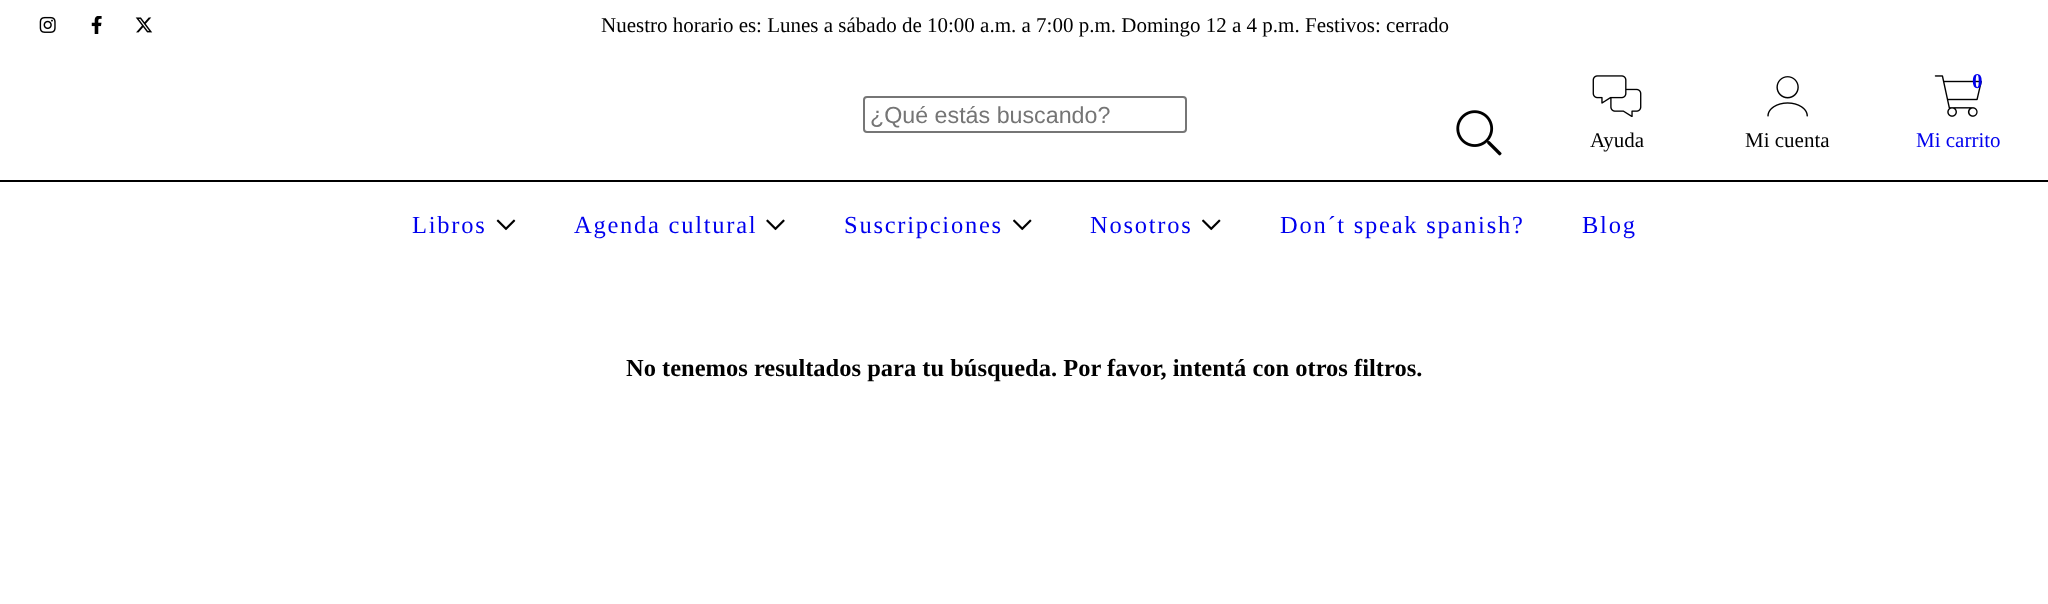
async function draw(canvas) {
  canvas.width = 2048
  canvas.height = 604
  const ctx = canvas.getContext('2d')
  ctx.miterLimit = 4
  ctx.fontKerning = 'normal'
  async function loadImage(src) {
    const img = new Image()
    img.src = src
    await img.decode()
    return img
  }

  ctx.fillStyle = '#fff'
  ctx.fillRect(0, 0, 2048, 604)
  ctx.drawImage(await loadImage('image0.png'), 39, 16, 17, 17)
  ctx.drawImage(await loadImage('image1.png'), 91, 16, 11, 18)
  ctx.drawImage(await loadImage('image2.png'), 135, 17, 18, 16)
  ctx.font = '21px Liberation Serif'
  ctx.fillStyle = '#000'
  ctx.fillText('Nuestro horario es: Lunes a sábado de 10:00 a.m. a 7:00 p.m. Domingo 12 a 4 p.m. Festivos: cerrado', 601, 32)
  ctx.beginPath()
  ctx.roundRect(864, 97, 322, 35, 3)
  ctx.strokeStyle = '#767676'
  ctx.lineWidth = 2
  ctx.stroke()
  ctx.font = '23.25px Liberation Sans'
  ctx.fillStyle = '#757575'
  ctx.fillText('¿Qué estás buscando?', 870, 123)
  ctx.drawImage(await loadImage('image3.png'), 1456, 110, 46, 46)
  ctx.drawImage(await loadImage('image4.png'), 1592, 75, 50, 42)
  ctx.font = '21px Liberation Serif'
  ctx.fillStyle = '#000'
  ctx.fillText('Ayuda', 1590, 147)
  ctx.drawImage(await loadImage('image5.png'), 1767, 76, 41, 41)
  ctx.fillText('Mi cuenta', 1745, 147)
  ctx.drawImage(await loadImage('image6.png'), 1934, 75, 48, 42)
  ctx.font = 'bold 21px Liberation Serif'
  ctx.fillStyle = '#00e'
  ctx.fillText('0', 1972, 88)
  ctx.font = '21px Liberation Serif'
  ctx.fillText('Mi carrito', 1916, 147)
  ctx.fillStyle = '#000'
  ctx.fillRect(0, 180, 2048, 2)
  ctx.letterSpacing = '1.75px'
  ctx.font = '24.5px Liberation Serif'
  ctx.fillStyle = '#00e'
  ctx.fillText('Libros', 412, 233)
  ctx.drawImage(await loadImage('image7.png'), 496, 219, 20, 12)
  ctx.fillText('Agenda cultural', 574, 233)
  ctx.drawImage(await loadImage('image8.png'), 766, 219, 19, 12)
  ctx.fillText('Suscripciones', 844, 233)
  ctx.drawImage(await loadImage('image9.png'), 1013, 219, 19, 12)
  ctx.fillText('Nosotros', 1090, 233)
  ctx.drawImage(await loadImage('image9.png'), 1202, 219, 19, 12)
  ctx.fillText('Don´t speak spanish?', 1280, 233)
  ctx.fillText('Blog', 1582, 233)
  ctx.letterSpacing = '0px'
  ctx.font = 'bold 24.5px Liberation Serif'
  ctx.fillStyle = '#000'
  ctx.fillText('No tenemos resultados para tu búsqueda. Por favor, intentá con otros filtros.', 626, 376)
}

draw(document.querySelector('canvas'))
